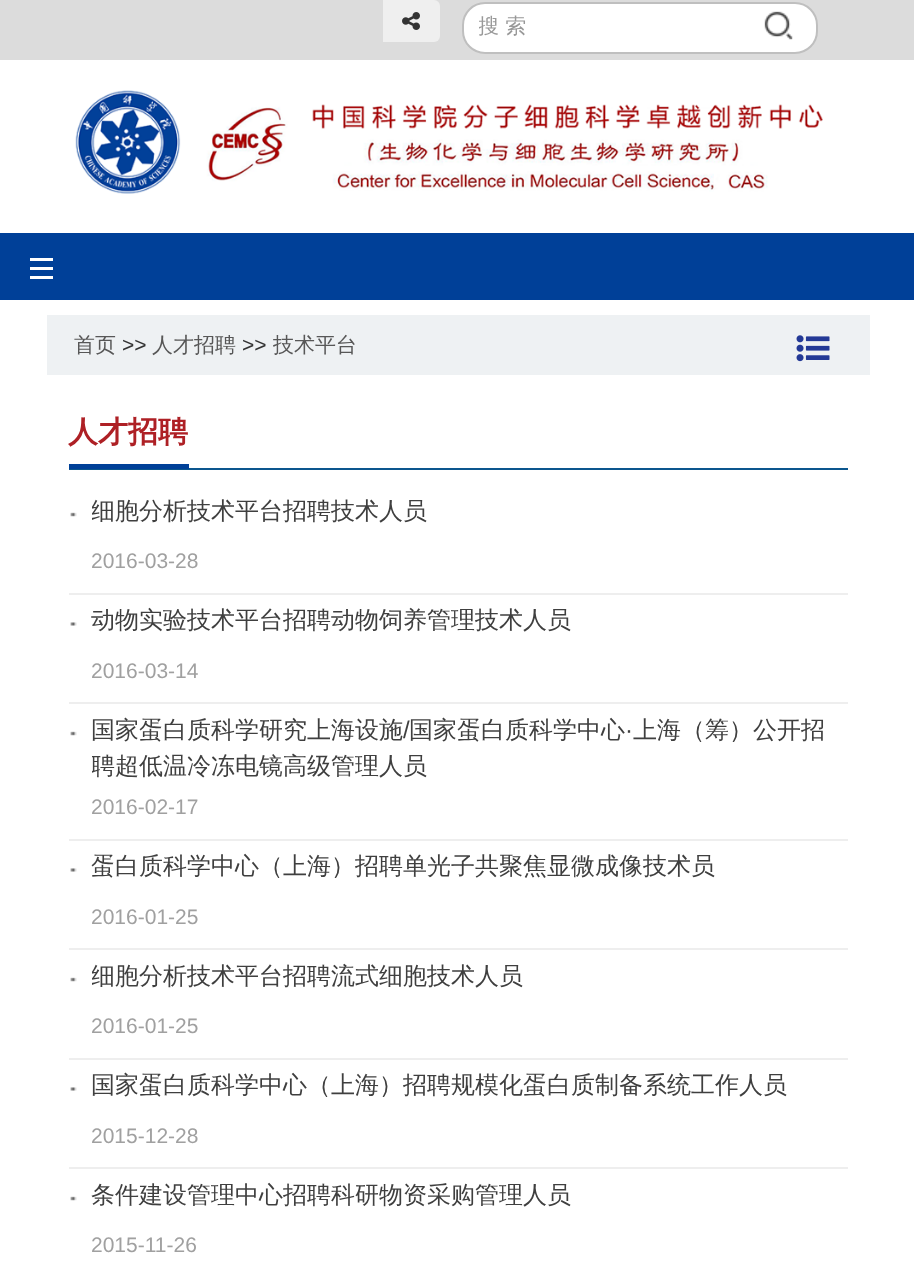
async function draw(canvas) {
  canvas.width = 914
  canvas.height = 1268
  const ctx = canvas.getContext('2d')
  ctx.miterLimit = 4
  ctx.fontKerning = 'normal'
  async function loadImage(src) {
    const img = new Image()
    img.src = src
    await img.decode()
    return img
  }

  ctx.fillStyle = '#fff'
  ctx.fillRect(0, 0, 914, 1268)
  ctx.fillStyle = '#dcdcdc'
  ctx.fillRect(0, 0, 914, 60)
  ctx.fillStyle = '#efefef'
  ctx.beginPath()
  ctx.roundRect(383, 0, 57, 42, [0, 6, 6, 0])
  ctx.fill()
  ctx.drawImage(await loadImage('image0.png'), 402, 12, 18, 18)
  ctx.fillStyle = '#fff'
  ctx.beginPath()
  ctx.roundRect(463, 3, 354, 50, 22)
  ctx.fill()
  ctx.strokeStyle = '#bfbfbf'
  ctx.lineWidth = 2
  ctx.stroke()
  ctx.save()
  ctx.beginPath()
  ctx.rect(479, 14, 271, 27)
  ctx.clip()
  ctx.font = '500 21px WenQuanYi Zen Hei'
  ctx.fillStyle = '#999'
  ctx.fillText('搜 索', 478, 33)
  ctx.restore()
  ctx.drawImage(await loadImage('image1.png'), 764, 11, 29, 29)
  ctx.drawImage(await loadImage('image2.png'), 75, 90, 748, 104)
  ctx.fillStyle = '#004098'
  ctx.fillRect(0, 233, 914, 67)
  ctx.fillStyle = '#fff'
  ctx.fillRect(30, 258, 23, 3)
  ctx.fillRect(30, 267, 23, 3)
  ctx.fillRect(30, 276, 23, 3)
  ctx.fillStyle = '#eef1f3'
  ctx.fillRect(47, 315, 823, 60)
  ctx.font = '500 21px WenQuanYi Zen Hei'
  ctx.fillStyle = '#575757'
  ctx.fillText('首页', 74, 352)
  ctx.font = '21px Liberation Sans'
  ctx.fillStyle = '#333'
  ctx.fillText('>>', 122, 352)
  ctx.font = '500 21px WenQuanYi Zen Hei'
  ctx.fillStyle = '#575757'
  ctx.fillText('人才招聘', 152, 352)
  ctx.font = '21px Liberation Sans'
  ctx.fillStyle = '#333'
  ctx.fillText('>>', 242, 352)
  ctx.font = '500 21px WenQuanYi Zen Hei'
  ctx.fillStyle = '#575757'
  ctx.fillText('技术平台', 273, 352)
  ctx.drawImage(await loadImage('image3.png'), 796, 335, 34, 27)
  ctx.fillStyle = '#0c568e'
  ctx.fillRect(69, 468, 779, 2)
  ctx.fillStyle = '#004098'
  ctx.fillRect(69, 464, 120, 5)
  ctx.font = 'bold 30px WenQuanYi Zen Hei'
  ctx.fillStyle = '#ae2025'
  ctx.fillText('人才招聘', 68, 442)
  ctx.drawImage(await loadImage('image4.png'), 70, 512, 7, 5)
  ctx.fillStyle = '#eee'
  ctx.fillRect(69, 593, 779, 2)
  ctx.save()
  ctx.beginPath()
  ctx.rect(92, 494, 756, 45)
  ctx.clip()
  ctx.font = '500 24px WenQuanYi Zen Hei'
  ctx.fillStyle = '#3f3f3f'
  ctx.fillText('细胞分析技术平台招聘技术人员', 91, 519)
  ctx.restore()
  ctx.font = '21px Liberation Sans'
  ctx.fillStyle = '#a0a0a0'
  ctx.fillText('2016-03-28', 91, 568)
  ctx.drawImage(await loadImage('image5.png'), 70, 622, 7, 4)
  ctx.fillStyle = '#eee'
  ctx.fillRect(69, 702, 779, 2)
  ctx.font = '500 24px WenQuanYi Zen Hei'
  ctx.fillStyle = '#3f3f3f'
  ctx.fillText('动物实验技术平台招聘动物饲养管理技术人员', 91, 628)
  ctx.font = '21px Liberation Sans'
  ctx.fillStyle = '#a0a0a0'
  ctx.fillText('2016-03-14', 91, 678)
  ctx.drawImage(await loadImage('image4.png'), 70, 731, 7, 5)
  ctx.fillStyle = '#eee'
  ctx.fillRect(69, 839, 779, 2)
  ctx.font = '500 24px WenQuanYi Zen Hei'
  ctx.fillStyle = '#3f3f3f'
  ctx.fillText('国家蛋白质科学研究上海设施', 91, 738)
  ctx.font = '24px Liberation Sans'
  ctx.fillText('/', 403, 738)
  ctx.font = '500 24px WenQuanYi Zen Hei'
  ctx.fillText('国家蛋白质科学中心', 409, 738)
  ctx.font = '24px Liberation Sans'
  ctx.fillText('·', 625, 738)
  ctx.font = '500 24px WenQuanYi Zen Hei'
  ctx.fillText('上海（筹）公开招', 633, 738)
  ctx.save()
  ctx.beginPath()
  ctx.rect(92, 713, 756, 72)
  ctx.clip()
  ctx.fillText('聘超低温冷冻电镜高级管理人员', 91, 774)
  ctx.restore()
  ctx.font = '21px Liberation Sans'
  ctx.fillStyle = '#a0a0a0'
  ctx.fillText('2016-02-17', 91, 814)
  ctx.drawImage(await loadImage('image5.png'), 70, 868, 7, 4)
  ctx.fillStyle = '#eee'
  ctx.fillRect(69, 948, 779, 2)
  ctx.font = '500 24px WenQuanYi Zen Hei'
  ctx.fillStyle = '#3f3f3f'
  ctx.fillText('蛋白质科学中心（上海）招聘单光子共聚焦显微成像技术员', 91, 874)
  ctx.font = '21px Liberation Sans'
  ctx.fillStyle = '#a0a0a0'
  ctx.fillText('2016-01-25', 91, 924)
  ctx.drawImage(await loadImage('image4.png'), 70, 977, 7, 5)
  ctx.fillStyle = '#eee'
  ctx.fillRect(69, 1058, 779, 2)
  ctx.save()
  ctx.beginPath()
  ctx.rect(92, 959, 756, 45)
  ctx.clip()
  ctx.font = '500 24px WenQuanYi Zen Hei'
  ctx.fillStyle = '#3f3f3f'
  ctx.fillText('细胞分析技术平台招聘流式细胞技术人员', 91, 984)
  ctx.restore()
  ctx.fillStyle = '#a0a0a0'
  ctx.fillText('2016-01-25', 91, 1033)
  ctx.drawImage(await loadImage('image5.png'), 70, 1087, 7, 4)
  ctx.fillStyle = '#eee'
  ctx.fillRect(69, 1167, 779, 2)
  ctx.font = '500 24px WenQuanYi Zen Hei'
  ctx.fillStyle = '#3f3f3f'
  ctx.fillText('国家蛋白质科学中心（上海）招聘规模化蛋白质制备系统工作人员', 91, 1093)
  ctx.font = '21px Liberation Sans'
  ctx.fillStyle = '#a0a0a0'
  ctx.fillText('2015-12-28', 91, 1143)
  ctx.drawImage(await loadImage('image4.png'), 70, 1196, 7, 5)
  ctx.font = '500 24px WenQuanYi Zen Hei'
  ctx.fillStyle = '#3f3f3f'
  ctx.fillText('条件建设管理中心招聘科研物资采购管理人员', 91, 1203)
  ctx.font = '21px Liberation Sans'
  ctx.fillStyle = '#a0a0a0'
  ctx.fillText('2015-11-26', 91, 1252)
}

draw(document.querySelector('canvas'))
